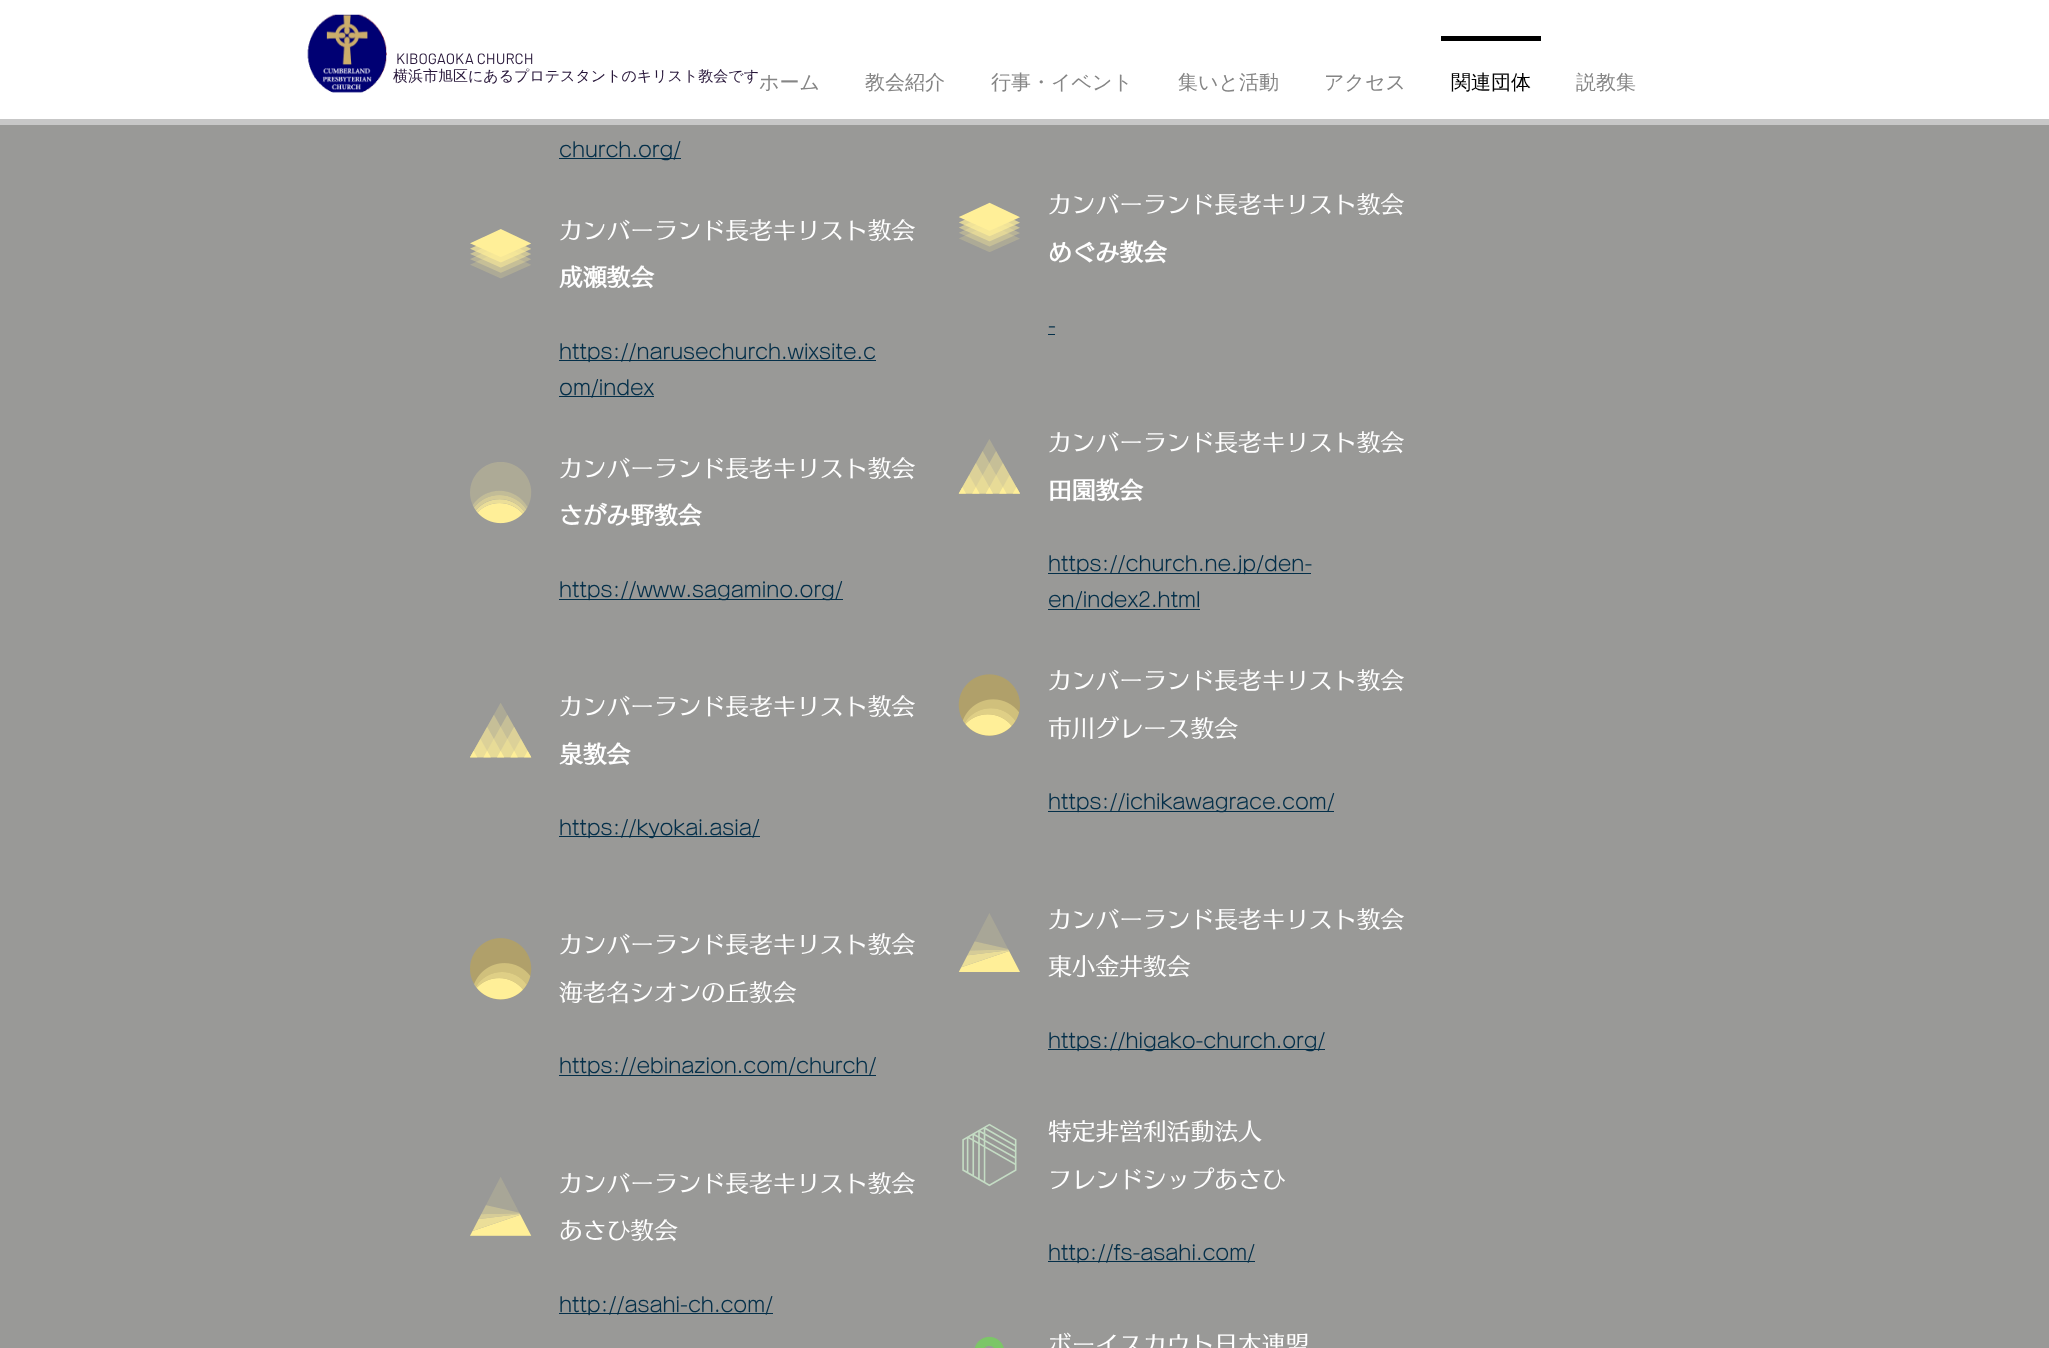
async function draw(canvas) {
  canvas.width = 2049
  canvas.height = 1348
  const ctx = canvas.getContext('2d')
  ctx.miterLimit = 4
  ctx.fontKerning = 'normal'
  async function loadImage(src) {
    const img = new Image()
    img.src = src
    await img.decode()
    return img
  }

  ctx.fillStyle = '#999997'
  ctx.fillRect(0, 0, 2049, 1348)
  ctx.fillStyle = '#fff'
  ctx.fillRect(0, 0, 2049, 119)
  ctx.fillStyle = '#c7c7c7'
  ctx.fillRect(0, 119, 2049, 6)
  ctx.drawImage(await loadImage('image0.png'), 307, 14, 80, 79)
  ctx.font = '15px Barlow'
  ctx.fillStyle = '#271639'
  ctx.fillText('KIBOGAOKA CHURCH', 396, 64)
  ctx.font = '500 15px WenQuanYi Zen Hei'
  ctx.fillText('横浜市旭区にあるプロテスタントのキリスト教会です', 393, 81)
  ctx.font = '500 20px WenQuanYi Zen Hei'
  ctx.fillStyle = '#858585'
  ctx.fillText('ホーム', 759, 89)
  ctx.fillText('教会紹介', 865, 89)
  ctx.fillText('行事・イベント', 991, 89)
  ctx.fillText('集いと活動', 1178, 89)
  ctx.fillText('アクセス', 1324, 89)
  ctx.fillStyle = '#000'
  ctx.fillRect(1441, 36, 100, 5)
  ctx.fillText('関連団体', 1451, 89)
  ctx.fillStyle = '#858585'
  ctx.fillText('説教集', 1576, 89)
  ctx.fillStyle = '#042f49'
  ctx.fillRect(559, 158, 122, 1)
  ctx.font = '500 20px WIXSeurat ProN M'
  ctx.fillText('church.org/', 559, 157)
  ctx.drawImage(await loadImage('image1.png'), 470, 229, 61, 50)
  ctx.font = '500 23.75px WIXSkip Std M'
  ctx.fillStyle = '#fff'
  ctx.fillText('カンバーランド長老キリスト教会', 559, 239)
  ctx.font = 'bold 23.75px WIXSkip Std M'
  ctx.fillText('成瀬教会', 559, 286)
  ctx.fillStyle = '#042f49'
  ctx.fillRect(559, 360, 317, 1)
  ctx.font = '500 20px WIXSeurat ProN M'
  ctx.fillText('https://narusechurch.wixsite.c', 559, 359)
  ctx.fillRect(559, 396, 95, 1)
  ctx.fillText('om/index', 559, 395)
  ctx.drawImage(await loadImage('image2.png'), 470, 462, 62, 62)
  ctx.font = '500 23.75px WIXSkip Std M'
  ctx.fillStyle = '#fff'
  ctx.fillText('カンバーランド長老キリスト教会', 559, 477)
  ctx.font = 'bold 23.75px WIXSkip Std M'
  ctx.fillText('さがみ野教会', 559, 524)
  ctx.fillStyle = '#042f49'
  ctx.fillRect(559, 599, 284, 1)
  ctx.font = '500 20px WIXSeurat ProN M'
  ctx.fillText('https://www.sagamino.org/', 559, 597)
  ctx.drawImage(await loadImage('image3.png'), 470, 703, 62, 55)
  ctx.font = '500 23.75px WIXSkip Std M'
  ctx.fillStyle = '#fff'
  ctx.fillText('カンバーランド長老キリスト教会', 559, 715)
  ctx.font = 'bold 23.75px WIXSkip Std M'
  ctx.fillText('泉教会', 559, 763)
  ctx.fillStyle = '#042f49'
  ctx.fillRect(559, 836, 201, 1)
  ctx.font = '500 20px WIXSeurat ProN M'
  ctx.fillText('https://kyokai.asia/', 559, 835)
  ctx.drawImage(await loadImage('image4.png'), 470, 938, 62, 62)
  ctx.font = '500 23.75px WIXSkip Std M'
  ctx.fillStyle = '#fff'
  ctx.fillText('カンバーランド長老キリスト教会', 559, 953)
  ctx.fillText('海老名シオンの丘教会', 559, 1001)
  ctx.fillStyle = '#042f49'
  ctx.fillRect(559, 1075, 317, 1)
  ctx.font = '500 20px WIXSeurat ProN M'
  ctx.fillText('https://ebinazion.com/church/', 559, 1073)
  ctx.drawImage(await loadImage('image5.png'), 470, 1177, 62, 59)
  ctx.font = '500 23.75px WIXSkip Std M'
  ctx.fillStyle = '#fff'
  ctx.fillText('カンバーランド長老キリスト教会', 559, 1192)
  ctx.fillText('あさひ教会', 559, 1239)
  ctx.fillStyle = '#042f49'
  ctx.fillRect(559, 1313, 214, 1)
  ctx.font = '500 20px WIXSeurat ProN M'
  ctx.fillText('http://asahi-ch.com/', 559, 1312)
  ctx.drawImage(await loadImage('image6.png'), 959, 202, 61, 50)
  ctx.font = '500 23.75px WIXSkip Std M'
  ctx.fillStyle = '#fff'
  ctx.fillText('カンバーランド長老キリスト教会', 1048, 213)
  ctx.font = 'bold 23.75px WIXSkip Std M'
  ctx.fillText('めぐみ教会', 1048, 261)
  ctx.font = '500 20px WIXSeurat ProN M'
  ctx.fillStyle = '#042f49'
  ctx.fillText('-', 1048, 333)
  ctx.fillRect(1048, 334, 7, 1)
  ctx.drawImage(await loadImage('image7.png'), 958, 439, 62, 55)
  ctx.font = '500 23.75px WIXSkip Std M'
  ctx.fillStyle = '#fff'
  ctx.fillText('カンバーランド長老キリスト教会', 1048, 451)
  ctx.font = 'bold 23.75px WIXSkip Std M'
  ctx.fillText('田園教会', 1048, 499)
  ctx.fillStyle = '#042f49'
  ctx.fillRect(1048, 573, 263, 1)
  ctx.font = '500 20px WIXSeurat ProN M'
  ctx.fillText('https://church.ne.jp/den-', 1048, 571)
  ctx.fillRect(1048, 609, 152, 1)
  ctx.fillText('en/index2.html', 1048, 607)
  ctx.drawImage(await loadImage('image8.png'), 958, 674, 62, 62)
  ctx.font = '500 23.75px WIXSkip Std M'
  ctx.fillStyle = '#fff'
  ctx.fillText('カンバーランド長老キリスト教会', 1048, 689)
  ctx.fillText('市川グレース教会', 1048, 737)
  ctx.fillStyle = '#042f49'
  ctx.fillRect(1048, 811, 286, 1)
  ctx.font = '500 20px WIXSeurat ProN M'
  ctx.fillText('https://ichikawagrace.com/', 1048, 809)
  ctx.drawImage(await loadImage('image9.png'), 958, 913, 62, 59)
  ctx.font = '500 23.75px WIXSkip Std M'
  ctx.fillStyle = '#fff'
  ctx.fillText('カンバーランド長老キリスト教会', 1048, 928)
  ctx.fillText('東小金井教会', 1048, 975)
  ctx.fillStyle = '#042f49'
  ctx.fillRect(1048, 1049, 277, 1)
  ctx.font = '500 20px WIXSeurat ProN M'
  ctx.fillText('https://higako-church.org/', 1048, 1048)
  ctx.drawImage(await loadImage('image10.png'), 962, 1123, 55, 64)
  ctx.font = '500 23.75px WIXSkip Std M'
  ctx.fillStyle = '#fff'
  ctx.fillText('特定非営利活動法人', 1048, 1140)
  ctx.fillText('フレンドシップあさひ', 1048, 1188)
  ctx.fillStyle = '#042f49'
  ctx.fillRect(1048, 1261, 207, 1)
  ctx.font = '500 20px WIXSeurat ProN M'
  ctx.fillText('http://fs-asahi.com/', 1048, 1260)
  ctx.drawImage(await loadImage('image11.png'), 974, 1336, 30, 12)
  ctx.font = '500 23.75px WIXSkip Std M'
  ctx.fillStyle = '#fff'
  ctx.fillText('ボーイスカウト日本連盟', 1048, 1353)
}

draw(document.querySelector('canvas'))
